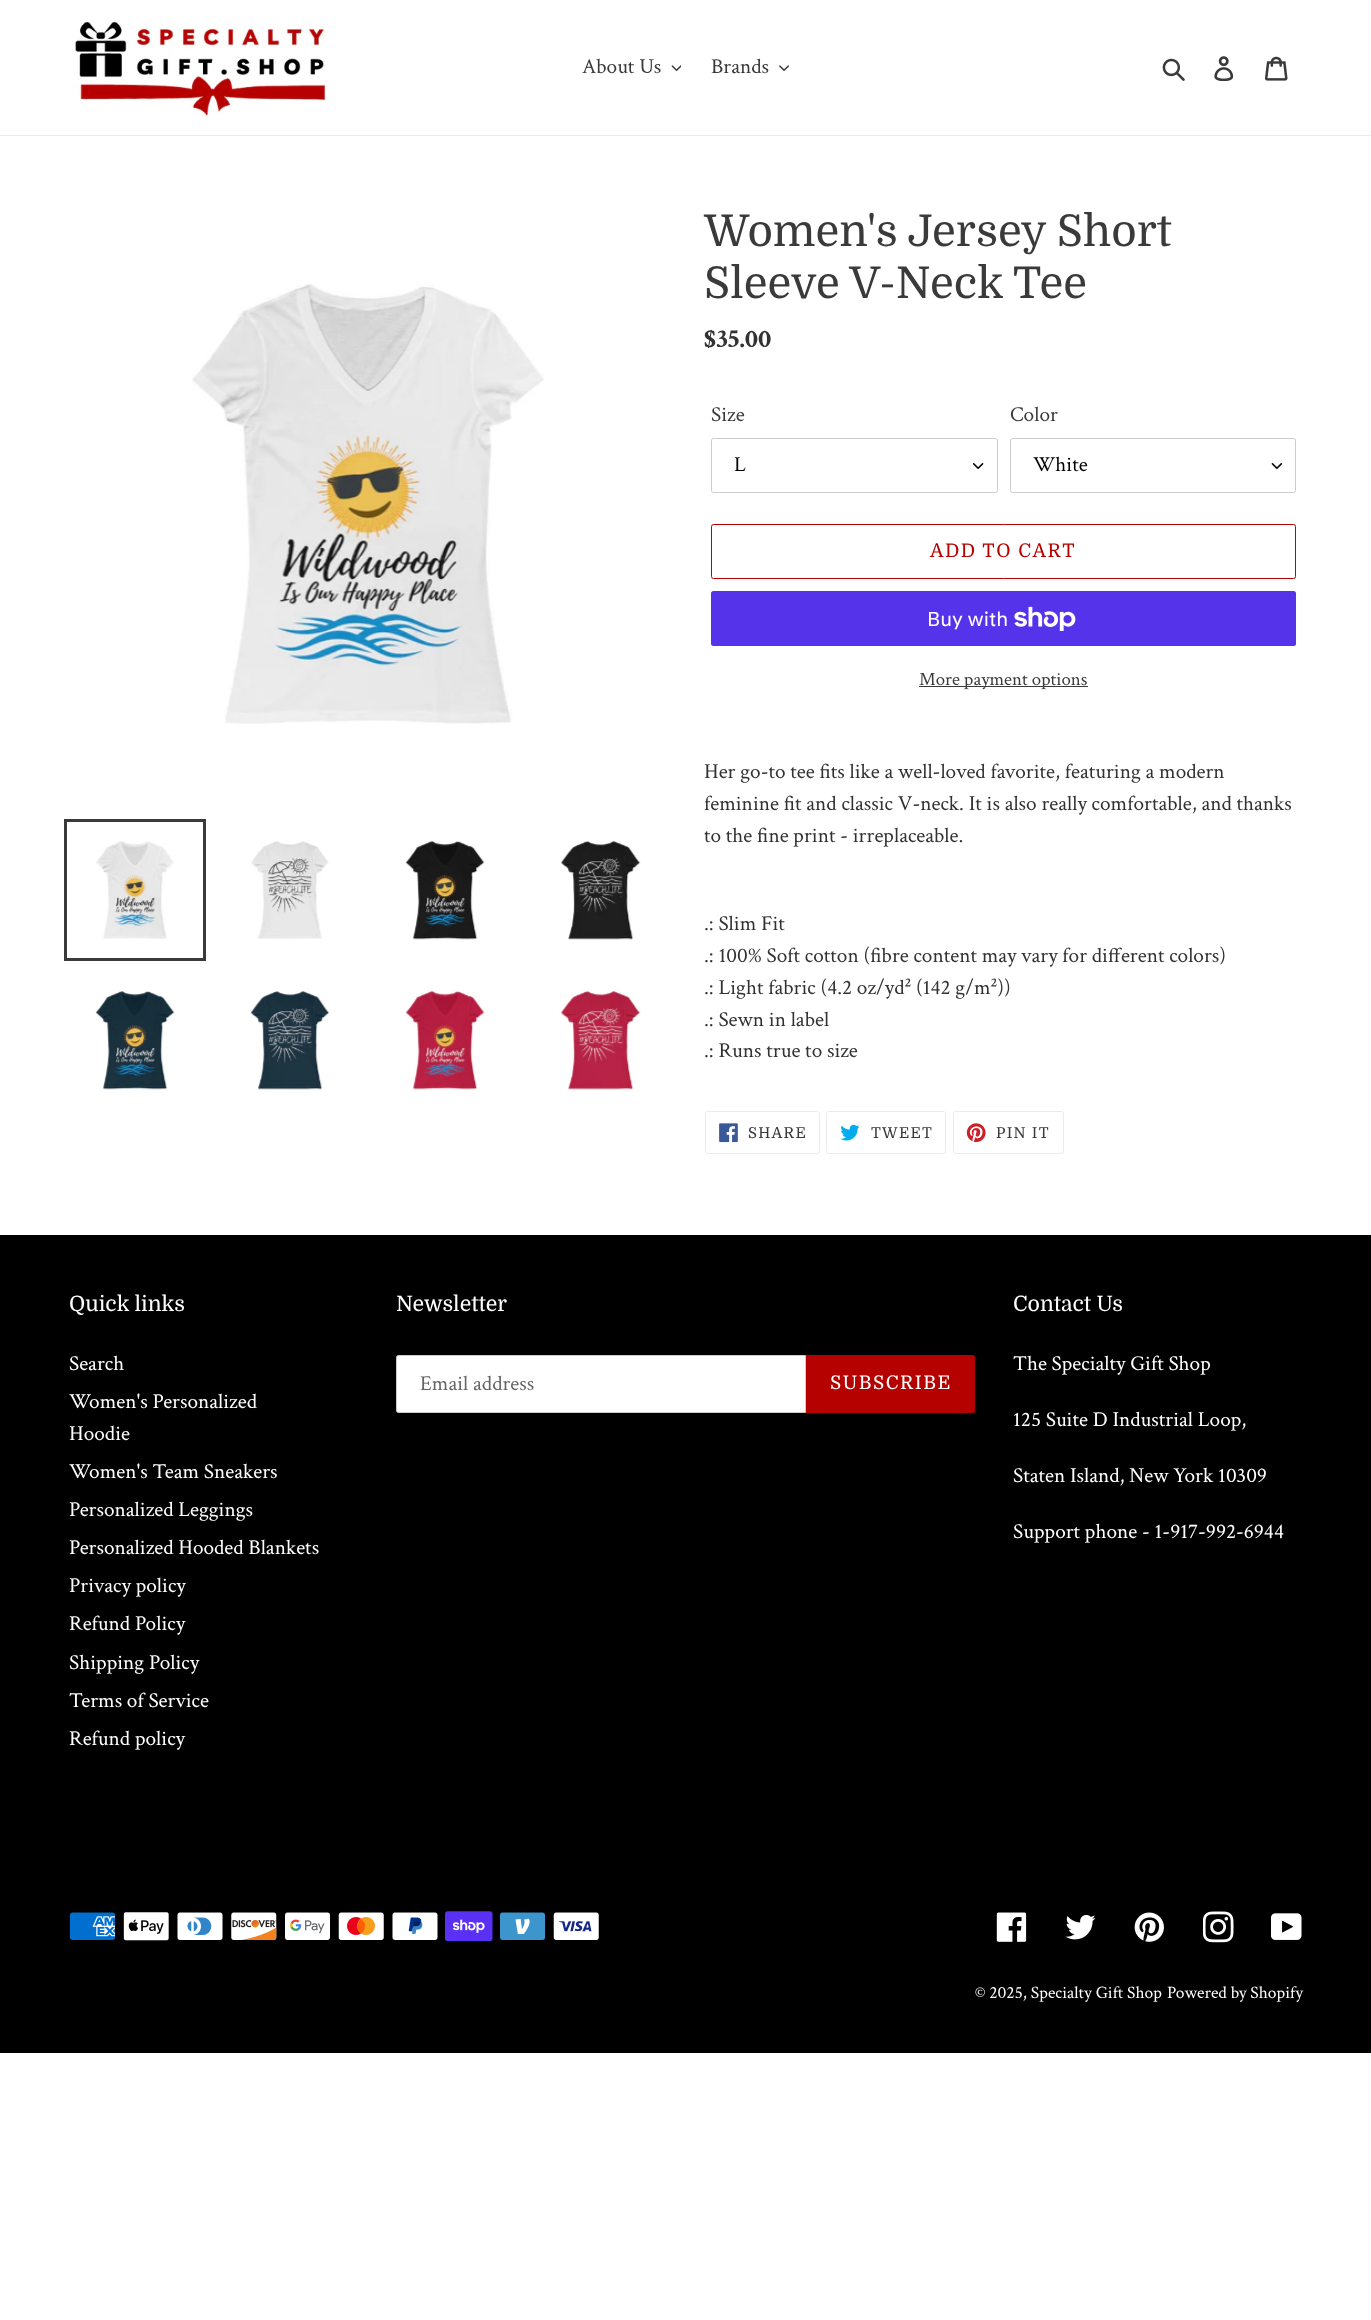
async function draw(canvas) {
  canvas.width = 1371
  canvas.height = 2320
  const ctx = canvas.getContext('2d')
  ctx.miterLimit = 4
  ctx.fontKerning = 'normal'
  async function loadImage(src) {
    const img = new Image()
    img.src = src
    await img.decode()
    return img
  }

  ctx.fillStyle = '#fff'
  ctx.fillRect(0, 0, 1371, 2320)
  ctx.fillStyle = '#ebebeb'
  ctx.fillRect(0, 135, 1371, 1)
  ctx.drawImage(await loadImage('image0.png'), 75, 21, 251, 95)
  ctx.font = '21.25px Crimson Text'
  ctx.fillStyle = '#3a3a3a'
  ctx.fillText('About Us', 582, 73)
  ctx.drawImage(await loadImage('image1.png'), 671, 65, 10, 6)
  ctx.fillText('Brands', 711, 73)
  ctx.drawImage(await loadImage('image2.png'), 779, 65, 10, 6)
  ctx.drawImage(await loadImage('image3.png'), 1162, 58, 23, 23)
  ctx.drawImage(await loadImage('image4.png'), 1214, 56, 20, 25)
  ctx.drawImage(await loadImage('image5.png'), 1265, 56, 23, 25)
  ctx.drawImage(await loadImage('image6.png'), 192, 284, 352, 440)
  ctx.strokeStyle = '#3a3a3a'
  ctx.lineWidth = 3
  ctx.strokeRect(65.5, 820.5, 139, 139)
  ctx.drawImage(await loadImage('image7.png'), 96, 841, 78, 98)
  ctx.drawImage(await loadImage('image8.png'), 251, 841, 78, 98)
  ctx.drawImage(await loadImage('image9.png'), 405, 841, 80, 99)
  ctx.drawImage(await loadImage('image10.png'), 561, 841, 80, 99)
  ctx.drawImage(await loadImage('image11.png'), 95, 989, 80, 101)
  ctx.drawImage(await loadImage('image12.png'), 250, 991, 80, 99)
  ctx.drawImage(await loadImage('image13.png'), 405, 990, 80, 100)
  ctx.drawImage(await loadImage('image14.png'), 559, 988, 82, 102)
  ctx.font = '43.75px Domine'
  ctx.fillText('Women\'s Jersey Short', 704, 246)
  ctx.fillText('Sleeve V-Neck Tee', 704, 298)
  ctx.font = 'bold 26.5px Crimson Text'
  ctx.fillStyle = '#333232'
  ctx.fillText('$35.00', 704, 347)
  ctx.font = '21.25px Crimson Text'
  ctx.fillStyle = '#3a3a3a'
  ctx.fillText('Size', 711, 421)
  ctx.drawImage(await loadImage('image15.png'), 973, 463, 11, 6)
  ctx.beginPath()
  ctx.roundRect(711.5, 438.5, 286, 54, 2)
  ctx.strokeStyle = '#ccc'
  ctx.lineWidth = 1
  ctx.stroke()
  ctx.fillStyle = '#000'
  ctx.fillText('L', 734, 471)
  ctx.fillStyle = '#3a3a3a'
  ctx.fillText('Color', 1010, 421)
  ctx.drawImage(await loadImage('image16.png'), 1271, 463, 12, 6)
  ctx.beginPath()
  ctx.roundRect(1010.5, 438.5, 285, 54, 2)
  ctx.stroke()
  ctx.fillStyle = '#000'
  ctx.fillText('White', 1033, 471)
  ctx.beginPath()
  ctx.roundRect(711.5, 524.5, 584, 54, 2)
  ctx.strokeStyle = '#b60101'
  ctx.stroke()
  ctx.letterSpacing = '1.5px'
  ctx.font = '18.75px Domine'
  ctx.fillStyle = '#b60101'
  ctx.fillText('ADD TO CART', 930, 557)
  ctx.fillStyle = '#5433eb'
  ctx.beginPath()
  ctx.roundRect(711, 591, 585, 55, 2.5)
  ctx.fill()
  ctx.letterSpacing = '0px'
  ctx.font = '20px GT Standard'
  ctx.fillStyle = '#fff'
  ctx.fillText('Buy with', 927, 626)
  ctx.drawImage(await loadImage('image17.png'), 1014, 606, 62, 25)
  ctx.fillStyle = '#3a3a3a'
  ctx.fillRect(919, 686, 169, 1)
  ctx.font = '18.75px Crimson Text'
  ctx.fillText('More payment options', 919, 685)
  ctx.font = '21.25px Crimson Text'
  ctx.fillStyle = '#333232'
  ctx.fillText('Her go-to tee fits like a well-loved favorite, featuring a modern', 704, 778)
  ctx.fillText('feminine fit and classic V-neck. It is also really comfortable, and thanks', 704, 810)
  ctx.fillText('to the fine print - irreplaceable.', 704, 842)
  ctx.fillText('.: Slim Fit', 704, 930)
  ctx.fillText('.: 100% Soft cotton (fibre content may vary for different colors)', 704, 962)
  ctx.fillText('.: Light fabric (4.2 oz/yd² (142 g/m²))', 704, 994)
  ctx.fillText('.: Sewn in label', 704, 1026)
  ctx.fillText('.: Runs true to size', 704, 1057)
  ctx.beginPath()
  ctx.roundRect(705.5, 1111.5, 114, 42, 2)
  ctx.strokeStyle = '#ebebeb'
  ctx.stroke()
  ctx.drawImage(await loadImage('image18.png'), 719, 1123, 19, 20)
  ctx.letterSpacing = '1.25px'
  ctx.font = '15px Domine'
  ctx.fillStyle = '#3a3a3a'
  ctx.fillText('SHARE', 748, 1138)
  ctx.beginPath()
  ctx.roundRect(826.5, 1111.5, 119, 42, 2)
  ctx.stroke()
  ctx.drawImage(await loadImage('image19.png'), 840, 1124, 20, 17)
  ctx.fillText('TWEET', 871, 1138)
  ctx.beginPath()
  ctx.roundRect(953.5, 1111.5, 110, 42, 2)
  ctx.stroke()
  ctx.drawImage(await loadImage('image20.png'), 966, 1123, 20, 20)
  ctx.fillText('PIN IT', 996, 1138)
  ctx.fillStyle = '#000'
  ctx.fillRect(0, 1235, 1371, 818)
  ctx.letterSpacing = '0px'
  ctx.font = '21.25px Domine'
  ctx.fillStyle = '#fff'
  ctx.fillText('Quick links', 69, 1311)
  ctx.font = '21.25px Crimson Text'
  ctx.fillText('Search', 69, 1370)
  ctx.fillText('Women\'s Personalized', 69, 1408)
  ctx.fillText('Hoodie', 69, 1440)
  ctx.fillText('Women\'s Team Sneakers', 69, 1478)
  ctx.fillText('Personalized Leggings', 69, 1516)
  ctx.fillText('Personalized Hooded Blankets', 69, 1554)
  ctx.fillText('Privacy policy', 69, 1592)
  ctx.fillText('Refund Policy', 69, 1630)
  ctx.fillText('Shipping Policy', 69, 1669)
  ctx.fillText('Terms of Service', 69, 1707)
  ctx.fillText('Refund policy', 69, 1745)
  ctx.font = '21.25px Domine'
  ctx.fillText('Newsletter', 396, 1311)
  ctx.beginPath()
  ctx.roundRect(396.5, 1355.5, 409, 57, [2, 0, 0, 2])
  ctx.fill()
  ctx.strokeStyle = '#ccc'
  ctx.stroke()
  ctx.font = '21.25px Crimson Text'
  ctx.fillStyle = '#666'
  ctx.fillText('Email address', 420, 1390)
  ctx.fillStyle = '#b60101'
  ctx.beginPath()
  ctx.roundRect(806, 1355, 169, 58, [0, 2.5, 2.5, 0])
  ctx.fill()
  ctx.letterSpacing = '1.5px'
  ctx.font = '18.75px Domine'
  ctx.fillStyle = '#fff'
  ctx.fillText('SUBSCRIBE', 830, 1389)
  ctx.letterSpacing = '0px'
  ctx.font = '21.25px Domine'
  ctx.fillText('Contact Us', 1013, 1311)
  ctx.font = '21.25px Crimson Text'
  ctx.fillText('The Specialty Gift Shop', 1013, 1370)
  ctx.fillText('125 Suite D Industrial Loop,', 1013, 1426)
  ctx.fillText('Staten Island, New York 10309', 1013, 1482)
  ctx.fillText('Support phone - 1-917-992-6944', 1013, 1538)
  ctx.drawImage(await loadImage('image21.png'), 70, 1912, 45, 28)
  ctx.drawImage(await loadImage('image22.png'), 123, 1912, 46, 29)
  ctx.drawImage(await loadImage('image23.png'), 177, 1912, 46, 28)
  ctx.drawImage(await loadImage('image24.png'), 231, 1912, 46, 28)
  ctx.drawImage(await loadImage('image25.png'), 285, 1912, 45, 28)
  ctx.drawImage(await loadImage('image26.png'), 338, 1912, 46, 28)
  ctx.drawImage(await loadImage('image27.png'), 392, 1912, 46, 28)
  ctx.drawImage(await loadImage('image28.png'), 445, 1911, 48, 30)
  ctx.drawImage(await loadImage('image29.png'), 500, 1912, 45, 28)
  ctx.drawImage(await loadImage('image30.png'), 553, 1912, 46, 28)
  ctx.drawImage(await loadImage('image31.png'), 996, 1912, 31, 30)
  ctx.drawImage(await loadImage('image32.png'), 1065, 1914, 31, 26)
  ctx.drawImage(await loadImage('image33.png'), 1134, 1912, 30, 30)
  ctx.drawImage(await loadImage('image34.png'), 1203, 1911, 31, 32)
  ctx.drawImage(await loadImage('image35.png'), 1271, 1913, 31, 27)
  ctx.font = '17.5px Crimson Text'
  ctx.fillText('© 2025, Specialty Gift Shop', 975, 1998)
  ctx.fillText('Powered by Shopify', 1167, 1998)
}

draw(document.querySelector('canvas'))
